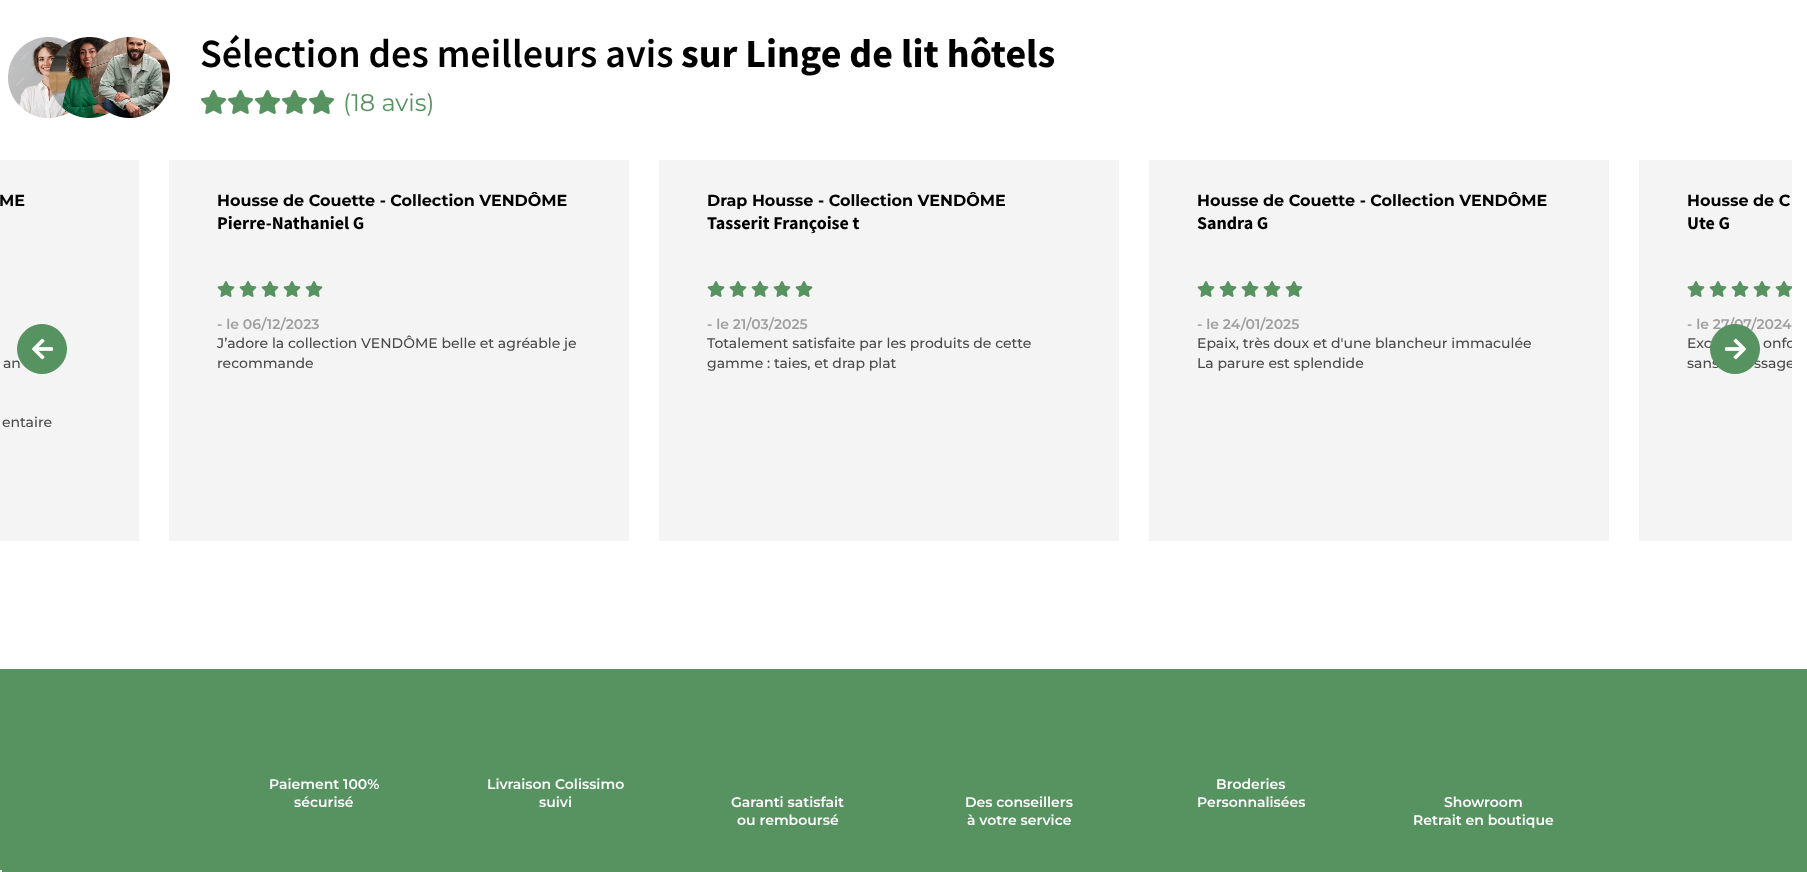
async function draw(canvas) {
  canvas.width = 1807
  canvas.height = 872
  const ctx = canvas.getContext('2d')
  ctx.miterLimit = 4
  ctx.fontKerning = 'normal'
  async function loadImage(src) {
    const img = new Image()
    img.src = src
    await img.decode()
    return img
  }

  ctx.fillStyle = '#fff'
  ctx.fillRect(0, 0, 1807, 872)
  ctx.drawImage(await loadImage('image0.png'), 8, 37, 162, 81)
  ctx.font = '600 40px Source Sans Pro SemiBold'
  ctx.fillStyle = '#000'
  ctx.fillText('Sélection des meilleurs avis', 200, 67)
  ctx.font = 'bold 40px Source Sans Pro'
  ctx.fillText('sur Linge de lit hôtels', 681, 67)
  ctx.drawImage(await loadImage('image1.png'), 201, 90, 25, 24)
  ctx.drawImage(await loadImage('image1.png'), 228, 90, 25, 24)
  ctx.drawImage(await loadImage('image1.png'), 255, 90, 25, 24)
  ctx.drawImage(await loadImage('image1.png'), 282, 90, 25, 24)
  ctx.drawImage(await loadImage('image1.png'), 309, 90, 25, 24)
  ctx.font = '24px Montserrat'
  ctx.fillStyle = '#579261'
  ctx.fillText('(18 avis)', 343, 111)
  ctx.fillStyle = '#f4f4f4'
  ctx.fillRect(0, 160, 139, 381)
  ctx.font = 'bold 16px Montserrat'
  ctx.fillStyle = '#000'
  ctx.fillText('ME', -1, 206)
  ctx.font = '500 14px Montserrat'
  ctx.fillStyle = '#4a4a4a'
  ctx.fillText('an', 3, 368)
  ctx.fillText('entaire', 2, 427)
  ctx.fillStyle = '#f4f4f4'
  ctx.fillRect(169, 160, 460, 381)
  ctx.save()
  ctx.beginPath()
  ctx.rect(217, 192, 364, 80)
  ctx.clip()
  ctx.font = 'bold 16px Montserrat'
  ctx.fillStyle = '#000'
  ctx.fillText('Housse de Couette - Collection VENDÔME', 217, 206)
  ctx.restore()
  ctx.font = 'bold 18px Source Sans Pro'
  ctx.fillStyle = '#000'
  ctx.fillText('Pierre-Nathaniel G', 217, 229)
  ctx.drawImage(await loadImage('image2.png'), 217, 281, 18, 16)
  ctx.drawImage(await loadImage('image2.png'), 239, 281, 18, 16)
  ctx.drawImage(await loadImage('image2.png'), 261, 281, 18, 16)
  ctx.drawImage(await loadImage('image2.png'), 283, 281, 18, 16)
  ctx.drawImage(await loadImage('image2.png'), 305, 281, 18, 16)
  ctx.font = '600 14px Montserrat'
  ctx.fillStyle = '#9f9f9f'
  ctx.fillText('- le 06/12/2023', 217, 329)
  ctx.font = '500 14px Montserrat'
  ctx.fillStyle = '#4a4a4a'
  ctx.fillText('J’adore la collection VENDÔME belle et agréable je', 217, 348)
  ctx.fillText('recommande', 217, 368)
  ctx.fillStyle = '#f4f4f4'
  ctx.fillRect(659, 160, 460, 381)
  ctx.save()
  ctx.beginPath()
  ctx.rect(707, 192, 364, 80)
  ctx.clip()
  ctx.font = 'bold 16px Montserrat'
  ctx.fillStyle = '#000'
  ctx.fillText('Drap Housse - Collection VENDÔME', 707, 206)
  ctx.restore()
  ctx.font = 'bold 18px Source Sans Pro'
  ctx.fillStyle = '#000'
  ctx.fillText('Tasserit Françoise t', 707, 229)
  ctx.drawImage(await loadImage('image2.png'), 707, 281, 18, 16)
  ctx.drawImage(await loadImage('image2.png'), 729, 281, 18, 16)
  ctx.drawImage(await loadImage('image2.png'), 751, 281, 18, 16)
  ctx.drawImage(await loadImage('image2.png'), 773, 281, 18, 16)
  ctx.drawImage(await loadImage('image2.png'), 795, 281, 18, 16)
  ctx.font = '600 14px Montserrat'
  ctx.fillStyle = '#9f9f9f'
  ctx.fillText('- le 21/03/2025', 707, 329)
  ctx.font = '500 14px Montserrat'
  ctx.fillStyle = '#4a4a4a'
  ctx.fillText('Totalement satisfaite par les produits de cette', 707, 348)
  ctx.fillText('gamme : taies, et drap plat', 707, 368)
  ctx.fillStyle = '#f4f4f4'
  ctx.fillRect(1149, 160, 460, 381)
  ctx.save()
  ctx.beginPath()
  ctx.rect(1197, 192, 364, 80)
  ctx.clip()
  ctx.font = 'bold 16px Montserrat'
  ctx.fillStyle = '#000'
  ctx.fillText('Housse de Couette - Collection VENDÔME', 1197, 206)
  ctx.restore()
  ctx.font = 'bold 18px Source Sans Pro'
  ctx.fillStyle = '#000'
  ctx.fillText('Sandra G', 1197, 229)
  ctx.drawImage(await loadImage('image2.png'), 1197, 281, 18, 16)
  ctx.drawImage(await loadImage('image2.png'), 1219, 281, 18, 16)
  ctx.drawImage(await loadImage('image2.png'), 1241, 281, 18, 16)
  ctx.drawImage(await loadImage('image2.png'), 1263, 281, 18, 16)
  ctx.drawImage(await loadImage('image2.png'), 1285, 281, 18, 16)
  ctx.font = '600 14px Montserrat'
  ctx.fillStyle = '#9f9f9f'
  ctx.fillText('- le 24/01/2025', 1197, 329)
  ctx.font = '500 14px Montserrat'
  ctx.fillStyle = '#4a4a4a'
  ctx.fillText('Epaix, très doux et d\'une blancheur immaculée', 1197, 348)
  ctx.fillText('La parure est splendide', 1197, 368)
  ctx.fillStyle = '#f4f4f4'
  ctx.fillRect(1639, 160, 153, 381)
  ctx.font = 'bold 16px Montserrat'
  ctx.fillStyle = '#000'
  ctx.fillText('Housse de C', 1687, 206)
  ctx.font = 'bold 18px Source Sans Pro'
  ctx.fillText('Ute G', 1687, 229)
  ctx.drawImage(await loadImage('image2.png'), 1687, 281, 18, 16)
  ctx.drawImage(await loadImage('image2.png'), 1709, 281, 18, 16)
  ctx.drawImage(await loadImage('image2.png'), 1731, 281, 18, 16)
  ctx.drawImage(await loadImage('image2.png'), 1753, 281, 18, 16)
  ctx.drawImage(await loadImage('image3.png'), 1775, 281, 17, 16)
  ctx.font = '600 14px Montserrat'
  ctx.fillStyle = '#9f9f9f'
  ctx.fillText('- le 27/07/2024', 1687, 329)
  ctx.font = '500 14px Montserrat'
  ctx.fillStyle = '#4a4a4a'
  ctx.fillText('Exc', 1687, 348)
  ctx.save()
  ctx.beginPath()
  ctx.rect(1687, 333, 105, 64)
  ctx.clip()
  ctx.fillText('onfo', 1763, 348)
  ctx.restore()
  ctx.fillText('sans', 1687, 368)
  ctx.save()
  ctx.beginPath()
  ctx.rect(1687, 333, 105, 64)
  ctx.clip()
  ctx.fillText('ssage', 1754, 368)
  ctx.restore()
  ctx.fillStyle = '#579261'
  ctx.beginPath()
  ctx.arc(42, 349, 24.5, 0, 2 * Math.PI)
  ctx.fill()
  ctx.strokeStyle = '#579261'
  ctx.stroke()
  ctx.drawImage(await loadImage('image4.png'), 32, 338, 22, 22)
  ctx.beginPath()
  ctx.arc(1735, 349, 24.5, 0, 2 * Math.PI)
  ctx.fill()
  ctx.stroke()
  ctx.drawImage(await loadImage('image5.png'), 1725, 338, 21, 22)
  ctx.fillRect(0, 669, 1807, 203)
  ctx.font = '600 14px Montserrat'
  ctx.fillStyle = '#fff'
  ctx.fillText('Paiement 100%', 269, 789)
  ctx.fillText('sécurisé', 294, 807)
  ctx.fillText('Livraison Colissimo', 487, 789)
  ctx.fillText('suivi', 539, 807)
  ctx.fillText('Broderies', 1216, 789)
  ctx.fillText('Personnalisées', 1197, 807)
  ctx.fillText('Garanti satisfait', 731, 807)
  ctx.fillText('ou remboursé', 737, 825)
  ctx.fillText('Des conseillers', 965, 807)
  ctx.fillText('à votre service', 967, 825)
  ctx.fillText('Showroom', 1444, 807)
  ctx.fillText('Retrait en boutique', 1413, 825)
  ctx.fillStyle = '#f5f5f5'
  ctx.fillRect(0, 870, 2, 2)
}

draw(document.querySelector('canvas'))
